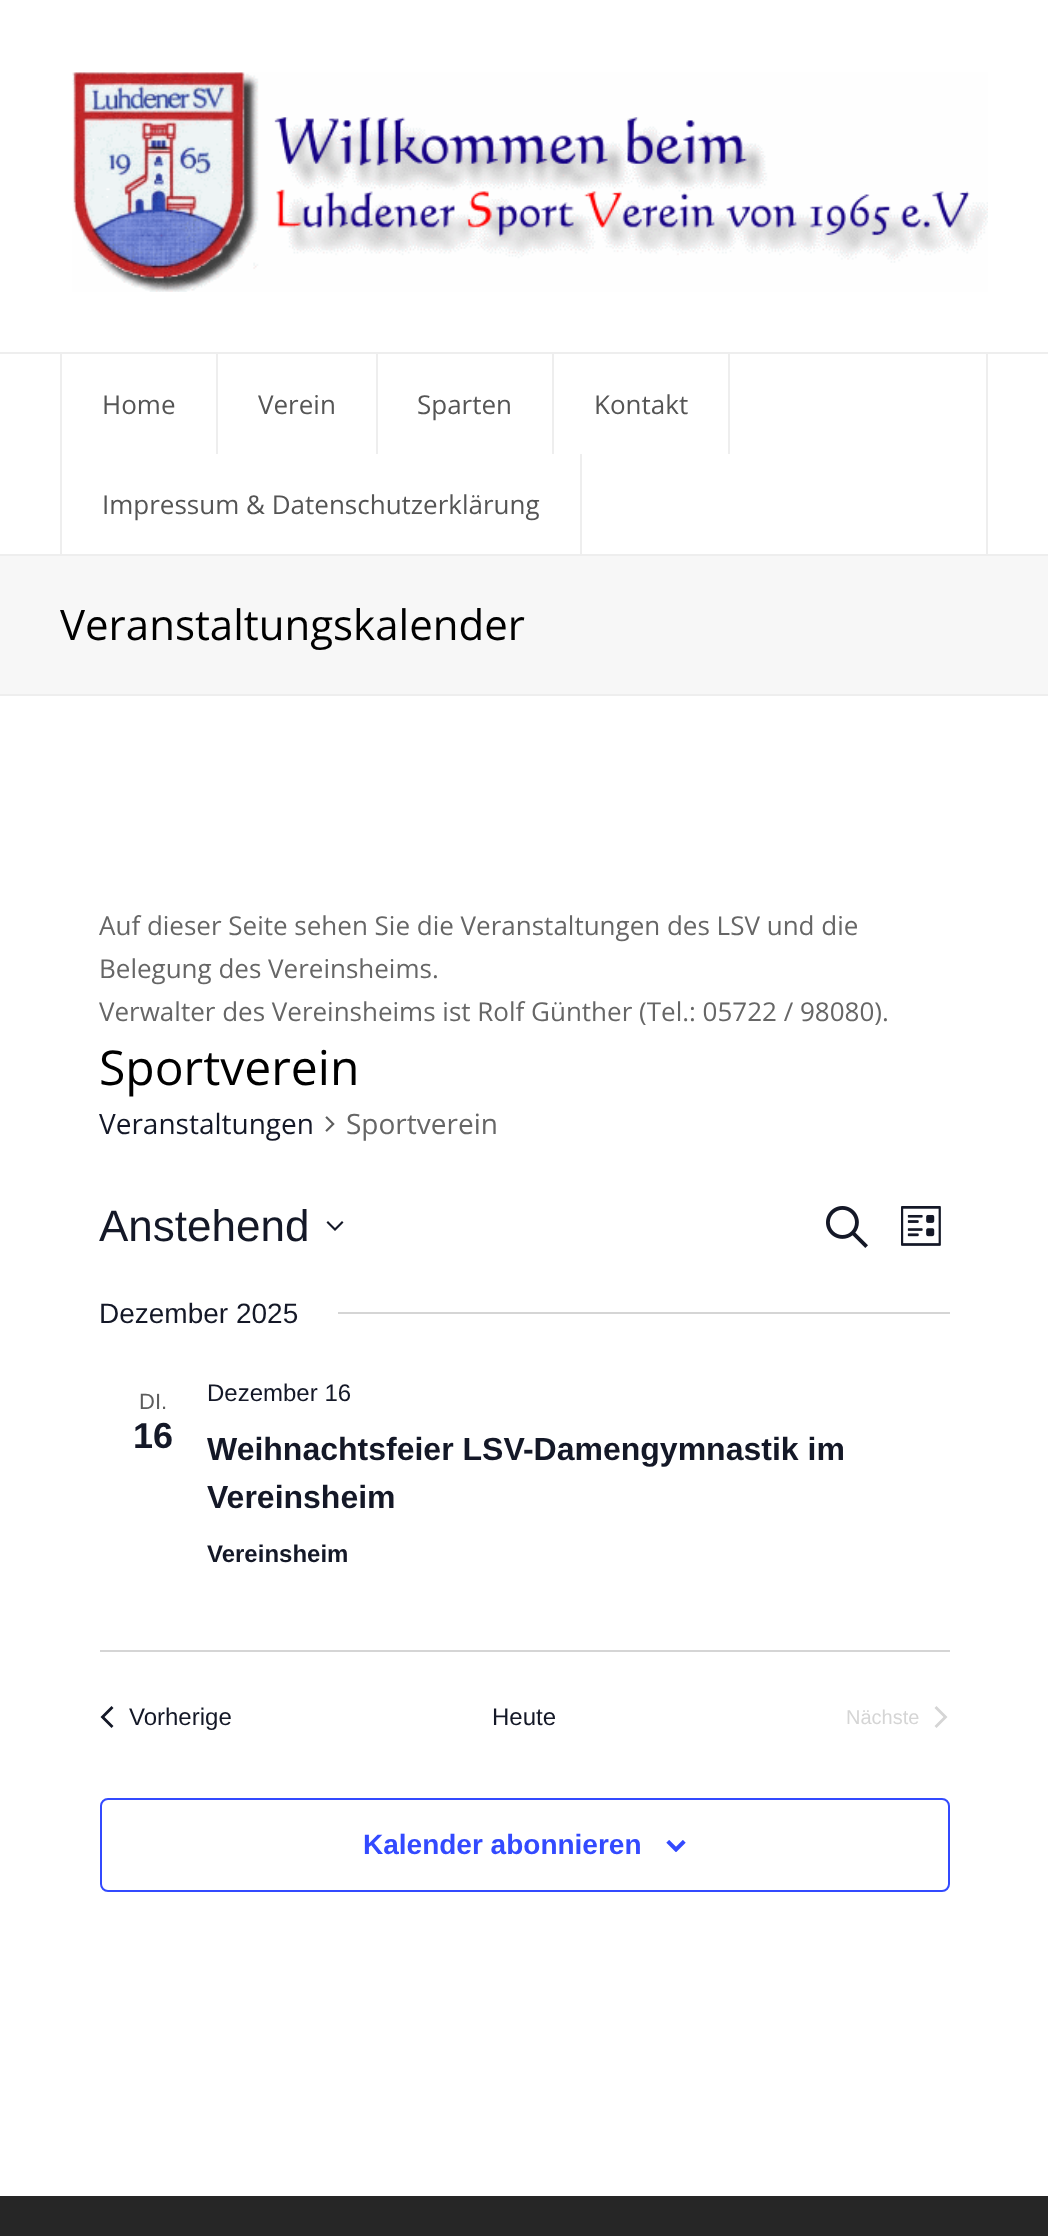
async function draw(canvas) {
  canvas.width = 1048
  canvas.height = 2236
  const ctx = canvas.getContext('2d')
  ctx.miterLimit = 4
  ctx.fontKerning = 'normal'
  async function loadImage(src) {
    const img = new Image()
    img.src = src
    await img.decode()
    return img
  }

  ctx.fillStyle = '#fff'
  ctx.fillRect(0, 0, 1048, 2236)
  ctx.drawImage(await loadImage('image0.png'), 72, 72, 916, 220)
  ctx.fillStyle = '#eee'
  ctx.fillRect(0, 352, 1048, 2)
  ctx.fillRect(986, 354, 2, 200)
  ctx.fillRect(60, 354, 2, 200)
  ctx.fillRect(216, 354, 2, 100)
  ctx.font = '26px Open Sans'
  ctx.fillStyle = '#555'
  ctx.fillText('Home', 102, 414)
  ctx.fillStyle = '#eee'
  ctx.fillRect(376, 354, 2, 100)
  ctx.fillStyle = '#555'
  ctx.fillText('Verein', 258, 414)
  ctx.fillStyle = '#eee'
  ctx.fillRect(552, 354, 2, 100)
  ctx.fillStyle = '#555'
  ctx.fillText('Sparten', 417, 414)
  ctx.fillStyle = '#eee'
  ctx.fillRect(728, 354, 2, 100)
  ctx.fillStyle = '#555'
  ctx.fillText('Kontakt', 594, 414)
  ctx.fillStyle = '#eee'
  ctx.fillRect(580, 454, 2, 100)
  ctx.fillStyle = '#555'
  ctx.fillText('Impressum & Datenschutzerklärung', 102, 514)
  ctx.fillStyle = '#f7f7f7'
  ctx.fillRect(0, 556, 1048, 138)
  ctx.fillStyle = '#eee'
  ctx.fillRect(0, 554, 1048, 2)
  ctx.fillRect(0, 694, 1048, 2)
  ctx.font = '42px Open Sans'
  ctx.fillStyle = '#000'
  ctx.fillText('Veranstaltungskalender', 60, 640)
  ctx.font = '26px Open Sans'
  ctx.fillStyle = '#666'
  ctx.fillText('Auf dieser Seite sehen Sie die Veranstaltungen des LSV und die', 99, 935)
  ctx.fillText('Belegung des Vereinsheims.', 99, 978)
  ctx.fillText('Verwalter des Vereinsheims ist Rolf Günther (Tel.: 05722 / 98080).', 99, 1021)
  ctx.font = '48px Open Sans'
  ctx.fillStyle = '#000'
  ctx.fillText('Sportverein', 99, 1085)
  ctx.font = '28px Open Sans'
  ctx.fillStyle = '#141827'
  ctx.fillText('Veranstaltungen', 99, 1134)
  ctx.drawImage(await loadImage('image1.png'), 325, 1116, 10, 16)
  ctx.fillStyle = '#666'
  ctx.fillText('Sportverein', 346, 1134)
  ctx.font = '44px Liberation Sans'
  ctx.fillStyle = '#141827'
  ctx.fillText('Anstehend', 99, 1241)
  ctx.beginPath()
  ctx.moveTo(328, 1221)
  ctx.lineTo(335, 1228)
  ctx.lineTo(342, 1221)
  ctx.lineTo(343.5, 1222.5)
  ctx.lineTo(335, 1231)
  ctx.lineTo(326.5, 1222.5)
  ctx.closePath()
  ctx.fill('evenodd')
  ctx.drawImage(await loadImage('image2.png'), 826, 1206, 42, 42)
  ctx.drawImage(await loadImage('image3.png'), 901, 1206, 40, 40)
  ctx.font = '28px Liberation Sans'
  ctx.fillText('Dezember 2025', 99, 1323)
  ctx.fillStyle = '#d5d5d5'
  ctx.fillRect(338, 1312, 612, 2)
  ctx.font = '22px Liberation Sans'
  ctx.fillStyle = '#5d5d5d'
  ctx.fillText('DI.', 139, 1409)
  ctx.font = 'bold 36px Liberation Sans'
  ctx.fillStyle = '#141827'
  ctx.fillText('16', 133, 1448)
  ctx.font = '24px Liberation Sans'
  ctx.fillText('Dezember 16', 207, 1401)
  ctx.font = 'bold 32px Liberation Sans'
  ctx.fillText('Weihnachtsfeier LSV-Damengymnastik im', 207, 1460)
  ctx.fillText('Vereinsheim', 207, 1508)
  ctx.font = 'bold 24px Liberation Sans'
  ctx.fillText('Vereinsheim', 207, 1562)
  ctx.fillStyle = '#d5d5d5'
  ctx.fillRect(100, 1650, 850, 2)
  ctx.fillStyle = '#141827'
  ctx.beginPath()
  ctx.moveTo(113.5, 1726)
  ctx.lineTo(111.5, 1728)
  ctx.lineTo(100.5, 1717)
  ctx.lineTo(111.5, 1706)
  ctx.lineTo(113.5, 1708)
  ctx.lineTo(104.5, 1717)
  ctx.closePath()
  ctx.fill()
  ctx.font = '24px Liberation Sans'
  ctx.fillText('Vorherige', 129, 1725)
  ctx.fillText('Heute', 492, 1725)
  ctx.font = '20px Liberation Sans'
  ctx.fillStyle = '#d5d5d5'
  ctx.fillText('Nächste', 846, 1724)
  ctx.beginPath()
  ctx.moveTo(934.5, 1708)
  ctx.lineTo(936.5, 1706)
  ctx.lineTo(947.5, 1717)
  ctx.lineTo(936.5, 1728)
  ctx.lineTo(934.5, 1726)
  ctx.lineTo(943.5, 1717)
  ctx.closePath()
  ctx.fill()
  ctx.beginPath()
  ctx.roundRect(101, 1799, 848, 92, 7)
  ctx.strokeStyle = '#334aff'
  ctx.lineWidth = 2
  ctx.stroke()
  ctx.font = 'bold 28px Liberation Sans'
  ctx.fillStyle = '#334aff'
  ctx.fillText('Kalender abonnieren', 363, 1854)
  ctx.drawImage(await loadImage('image4.png'), 666, 1840, 20, 12)
  ctx.fillStyle = '#262626'
  ctx.fillRect(0, 2196, 1048, 40)
}

draw(document.querySelector('canvas'))
